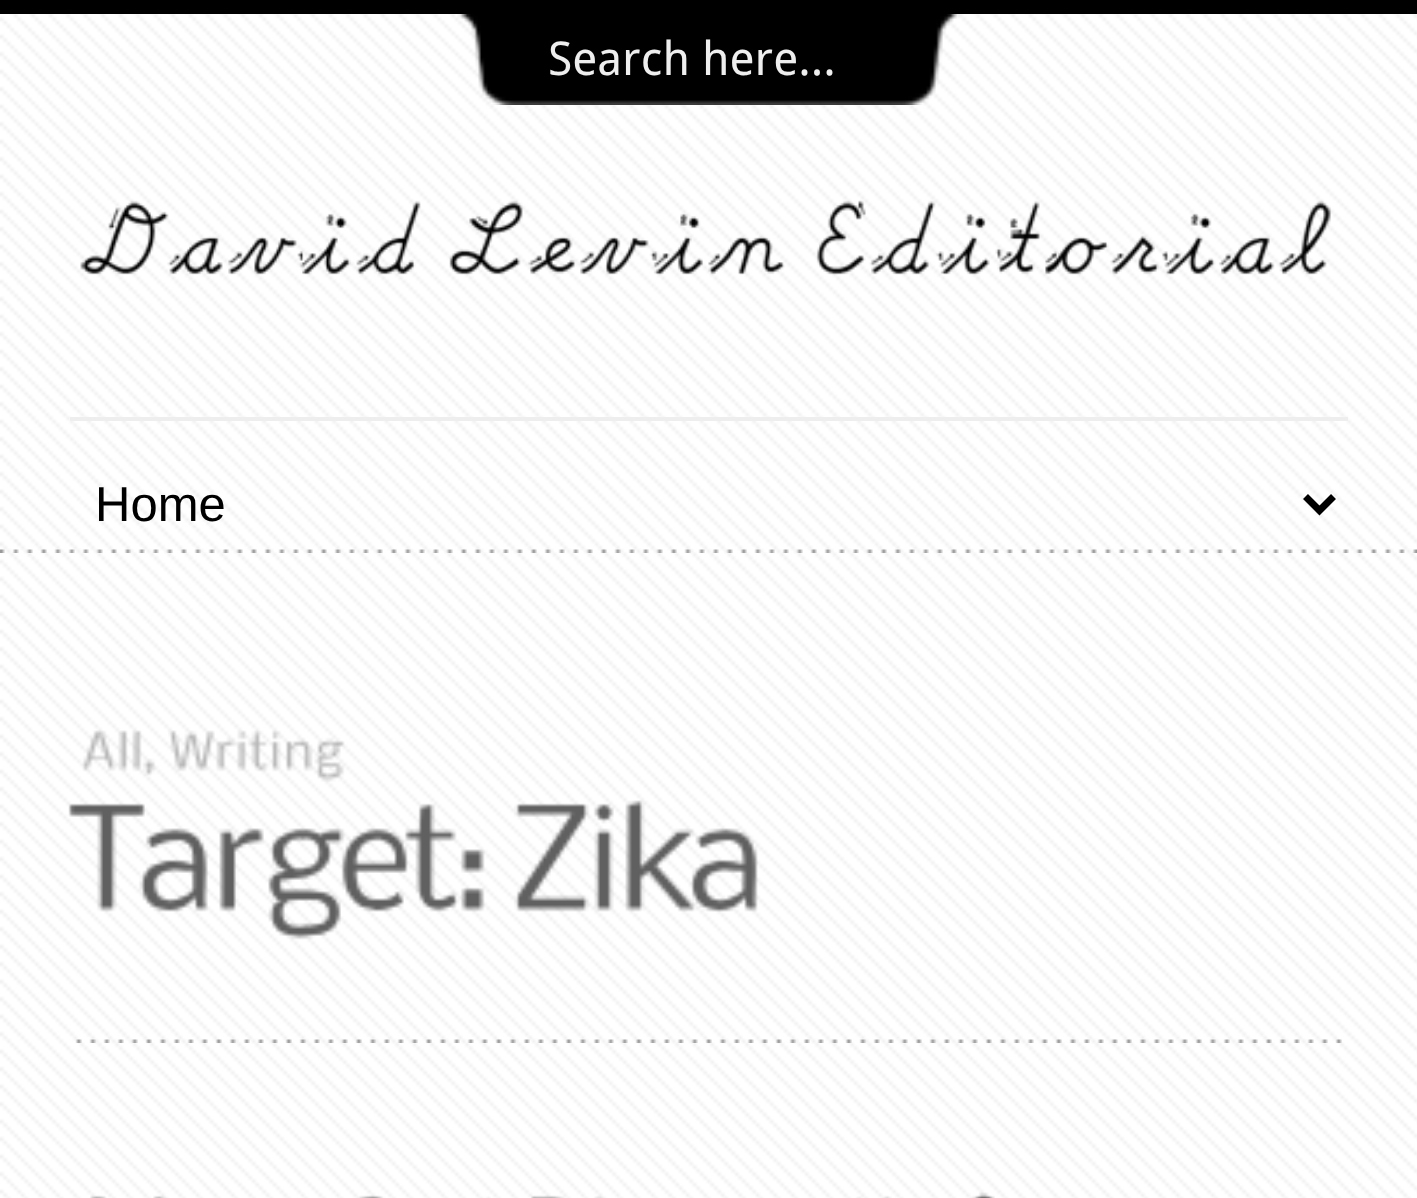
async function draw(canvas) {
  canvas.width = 1417
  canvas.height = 1198
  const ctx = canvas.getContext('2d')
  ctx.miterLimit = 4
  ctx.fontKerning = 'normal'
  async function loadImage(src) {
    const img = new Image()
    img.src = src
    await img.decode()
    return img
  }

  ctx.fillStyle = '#fff'
  ctx.fillRect(0, 0, 1417, 1198)
  ctx.drawImage(await loadImage('image0.png'), 0, 14, 1417, 1184)
  ctx.drawImage(await loadImage('image1.png'), 0, 549, 1417, 4)
  ctx.fillStyle = '#000'
  ctx.fillRect(0, 0, 1417, 14)
  ctx.drawImage(await loadImage('image2.png'), 457, 14, 503, 91)
  ctx.font = '46.75px Droid Sans'
  ctx.fillStyle = '#eee'
  ctx.fillText('Search here...', 548, 75)
  ctx.drawImage(await loadImage('image3.png'), 80, 200, 1251, 75)
  ctx.fillRect(70, 417, 1278, 4)
  ctx.beginPath()
  ctx.moveTo(1305.5, 496.5)
  ctx.lineTo(1319.5, 510.5)
  ctx.lineTo(1333.5, 496.5)
  ctx.strokeStyle = '#000'
  ctx.lineWidth = 7
  ctx.stroke()
  ctx.font = '49px Liberation Sans'
  ctx.fillStyle = '#000'
  ctx.fillText('Home', 95, 521)
  ctx.drawImage(await loadImage('image4.png'), 75, 1039, 1267, 4)
  ctx.drawImage(await loadImage('image5.png'), 82, 730, 74, 46)
  ctx.drawImage(await loadImage('image6.png'), 168, 730, 177, 52)
  ctx.drawImage(await loadImage('image7.png'), 68, 803, 417, 137)
  ctx.drawImage(await loadImage('image8.png'), 514, 800, 244, 112)
  ctx.drawImage(await loadImage('image9.png'), 90, 1195, 17, 3)
  ctx.drawImage(await loadImage('image10.png'), 153, 1195, 338, 3)
  ctx.drawImage(await loadImage('image11.png'), 531, 1195, 361, 3)
  ctx.drawImage(await loadImage('image12.png'), 972, 1192, 23, 6)
}

draw(document.querySelector('canvas'))
